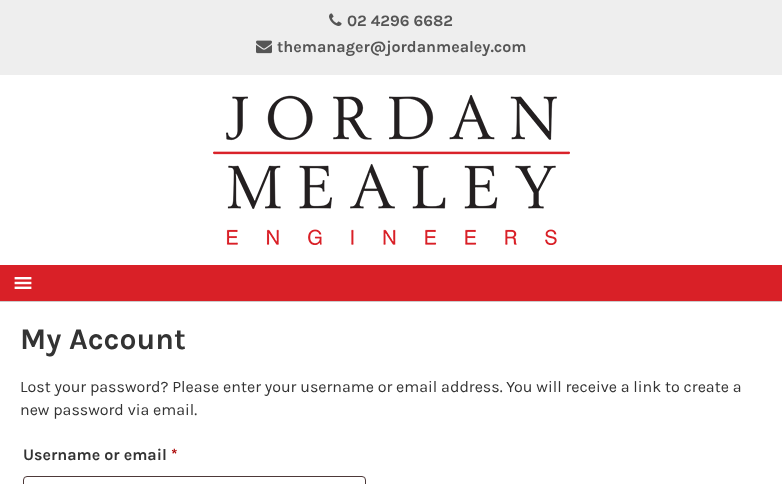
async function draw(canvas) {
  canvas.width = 782
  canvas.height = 484
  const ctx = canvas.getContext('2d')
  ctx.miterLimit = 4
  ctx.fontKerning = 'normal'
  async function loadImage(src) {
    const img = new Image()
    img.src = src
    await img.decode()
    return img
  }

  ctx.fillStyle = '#fff'
  ctx.fillRect(0, 0, 782, 484)
  ctx.fillStyle = '#eee'
  ctx.fillRect(0, 0, 782, 75)
  ctx.drawImage(await loadImage('image0.png'), 329, 13, 13, 13)
  ctx.font = 'bold 16px Karla'
  ctx.fillStyle = '#555'
  ctx.fillText('02 4296 6682', 347, 26)
  ctx.drawImage(await loadImage('image1.png'), 256, 40, 16, 14)
  ctx.fillText('themanager@jordanmealey.com', 277, 52)
  ctx.fillStyle = '#ccc'
  ctx.fillRect(0, 301, 782, 1)
  ctx.drawImage(await loadImage('image2.png'), 213, 95, 357, 150)
  ctx.fillStyle = '#d92027'
  ctx.fillRect(0, 265, 782, 36)
  ctx.drawImage(await loadImage('image3.png'), 14, 277, 18, 12)
  ctx.font = 'bold 30px Karla'
  ctx.fillStyle = '#333'
  ctx.fillText('My Account', 20, 349)
  ctx.font = '16px Karla'
  ctx.fillText('Lost your password? Please enter your username or email address. You will receive a link to create a', 20, 392)
  ctx.fillText('new password via email.', 20, 415)
  ctx.font = 'bold 16px Karla'
  ctx.fillText('Username or email', 23, 460)
  ctx.fillStyle = '#a00'
  ctx.fillText('*', 171, 460)
  ctx.beginPath()
  ctx.roundRect(23.5, 476.5, 342, 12, 3.5)
  ctx.strokeStyle = '#4d3939'
  ctx.stroke()
}

draw(document.querySelector('canvas'))
